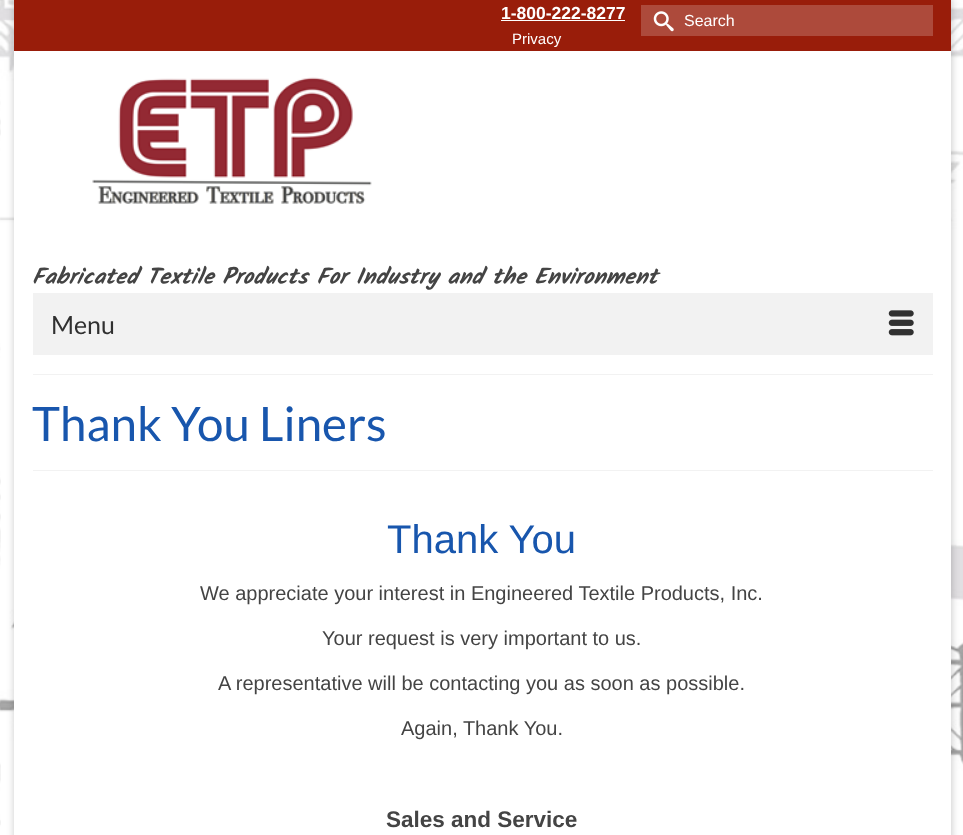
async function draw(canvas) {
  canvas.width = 963
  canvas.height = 835
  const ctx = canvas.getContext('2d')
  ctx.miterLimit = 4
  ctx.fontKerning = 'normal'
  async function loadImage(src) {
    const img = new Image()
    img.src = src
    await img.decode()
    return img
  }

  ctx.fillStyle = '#fff'
  ctx.fillRect(0, 0, 963, 835)
  ctx.drawImage(await loadImage('image0.png'), 0, 0, 963, 835)
  ctx.fillStyle = '#00000029'
  ctx.filter = 'blur(3px)'
  ctx.beginPath()
  ctx.rect(13, -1, 940, 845)
  ctx.fill()
  ctx.filter = 'none'
  ctx.fillStyle = '#fff'
  ctx.fillRect(14, 51, 937, 784)
  ctx.fillStyle = '#991d0a'
  ctx.fillRect(14, 0, 937, 51)
  ctx.font = 'bold 17.5px Liberation Sans'
  ctx.fillStyle = '#fff'
  ctx.fillText('1-800-222-8277', 501, 19)
  ctx.fillRect(501, 20, 124, 1)
  ctx.font = '15px Liberation Sans'
  ctx.fillText('Privacy', 512, 44)
  ctx.fillStyle = '#ad4a3b'
  ctx.fillRect(641, 5, 292, 31)
  ctx.drawImage(await loadImage('image1.png'), 653, 11, 21, 21)
  ctx.font = '16px Liberation Sans'
  ctx.fillStyle = '#fff'
  ctx.fillText('Search', 684, 26)
  ctx.drawImage(await loadImage('image2.png'), 92, 77, 280, 127)
  ctx.font = 'italic bold 22.5px Kalam'
  ctx.fillStyle = '#444'
  ctx.fillText('Fabricated Textile Products For Industry and the Environment', 32, 284)
  ctx.fillStyle = '#f2f2f2'
  ctx.fillRect(33, 293, 900, 62)
  ctx.font = '25px Lato'
  ctx.fillStyle = '#303030'
  ctx.fillText('Menu', 51, 334)
  ctx.drawImage(await loadImage('image3.png'), 888, 310, 26, 26)
  ctx.fillStyle = '#f2f2f2'
  ctx.fillRect(33, 374, 900, 1)
  ctx.fillRect(33, 470, 900, 1)
  ctx.font = '47.5px Lato'
  ctx.fillStyle = '#1856ad'
  ctx.fillText('Thank You Liners', 32, 441)
  ctx.font = '40px Liberation Sans'
  ctx.fillText('Thank You', 387, 553)
  ctx.font = '20px Liberation Sans'
  ctx.fillStyle = '#444'
  ctx.fillText('We appreciate your interest in Engineered Textile Products, Inc.', 200, 600)
  ctx.fillText('Your request is very important to us.', 322, 645)
  ctx.fillText('A representative will be contacting you as soon as possible.', 218, 690)
  ctx.fillText('Again, Thank You.', 401, 735)
  ctx.font = 'bold 22.5px Liberation Sans'
  ctx.fillText('Sales and Service', 386, 827)
}

draw(document.querySelector('canvas'))
